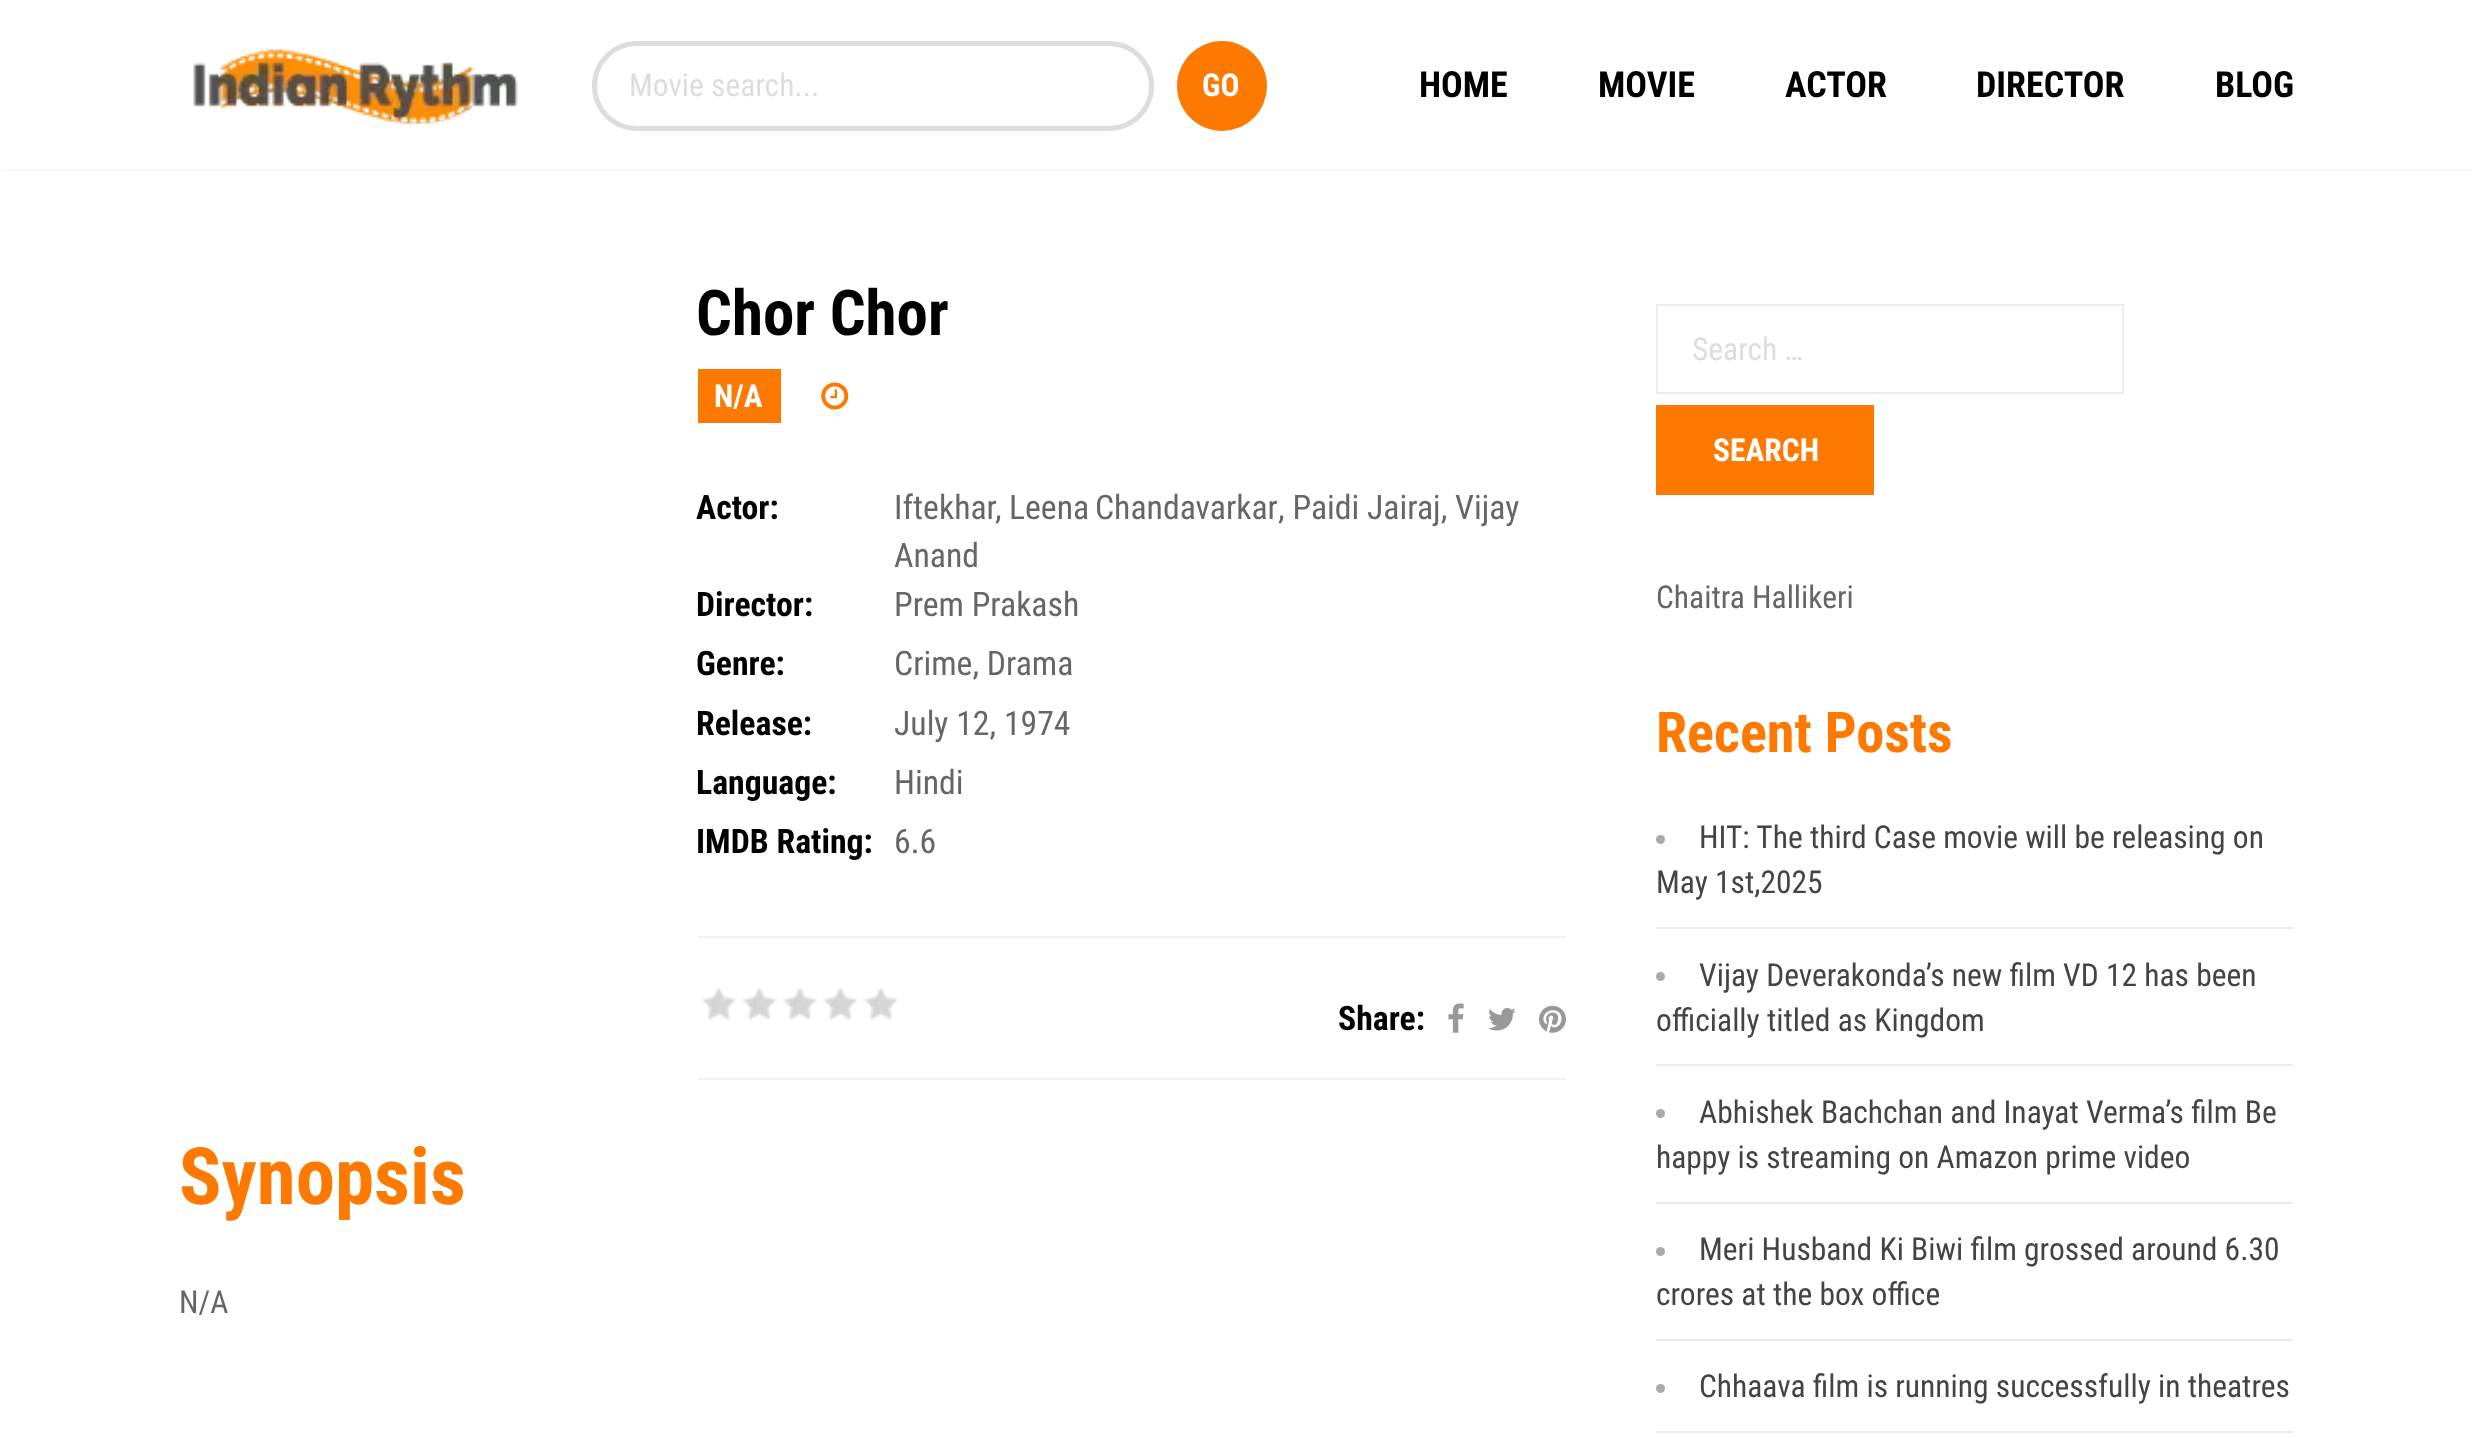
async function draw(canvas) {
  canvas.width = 2472
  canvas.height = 1438
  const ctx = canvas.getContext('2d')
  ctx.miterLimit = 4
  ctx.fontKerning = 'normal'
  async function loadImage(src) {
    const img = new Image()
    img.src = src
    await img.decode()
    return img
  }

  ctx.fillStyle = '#fff'
  ctx.fillRect(0, 0, 2472, 1438)
  ctx.save()
  ctx.beginPath()
  ctx.rect(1, 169, 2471, 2)
  ctx.clip()
  ctx.fillStyle = '#000'
  ctx.filter = 'blur(4.5px)'
  ctx.beginPath()
  ctx.rect(2, -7, 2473, 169)
  ctx.fill()
  ctx.filter = 'none'
  ctx.restore()
  ctx.drawImage(await loadImage('image0.png'), 193, 49, 325, 76)
  ctx.beginPath()
  ctx.roundRect(594.5, 43.5, 557, 85, 42.5)
  ctx.strokeStyle = '#ddd'
  ctx.lineWidth = 5
  ctx.stroke()
  ctx.font = '31.5px Roboto Condensed'
  ctx.fillStyle = '#ddd'
  ctx.fillText('Movie search...', 629, 96)
  ctx.fillStyle = '#fe7900'
  ctx.beginPath()
  ctx.arc(1222, 86, 45, 0, 2 * Math.PI)
  ctx.fill()
  ctx.font = 'bold 31.5px Roboto Condensed'
  ctx.fillStyle = '#fff'
  ctx.fillText('GO', 1202, 96)
  ctx.font = 'bold 36px Roboto Condensed'
  ctx.fillStyle = '#000'
  ctx.fillText('HOME', 1419, 97)
  ctx.fillText('MOVIE', 1598, 97)
  ctx.fillText('ACTOR', 1785, 97)
  ctx.fillText('DIRECTOR', 1976, 97)
  ctx.fillText('BLOG', 2215, 97)
  ctx.font = 'bold 63px Roboto Condensed'
  ctx.fillText('Chor Chor', 696, 335)
  ctx.fillStyle = '#fe7900'
  ctx.fillRect(698, 369, 83, 54)
  ctx.font = 'bold 31.5px Roboto Condensed'
  ctx.fillStyle = '#fff'
  ctx.fillText('N/A', 714, 407)
  ctx.drawImage(await loadImage('image1.png'), 821, 382, 28, 28)
  ctx.font = 'bold 33.75px Roboto Condensed'
  ctx.fillStyle = '#000'
  ctx.fillText('Actor:', 696, 519)
  ctx.font = '33.75px Roboto Condensed'
  ctx.fillStyle = '#666'
  ctx.fillText('Iftekhar', 894, 519)
  ctx.fillText(',', 995, 519)
  ctx.wordSpacing = '-2px'
  ctx.fillText('Leena Chandavarkar', 1009, 519)
  ctx.wordSpacing = '0px'
  ctx.fillText(', Paidi Jairaj, Vijay', 1278, 519)
  ctx.fillText('Anand', 894, 567)
  ctx.font = 'bold 33.75px Roboto Condensed'
  ctx.fillStyle = '#000'
  ctx.fillText('Director:', 696, 616)
  ctx.font = '33.75px Roboto Condensed'
  ctx.fillStyle = '#666'
  ctx.fillText('Prem Prakash', 894, 616)
  ctx.font = 'bold 33.75px Roboto Condensed'
  ctx.fillStyle = '#000'
  ctx.fillText('Genre:', 696, 675)
  ctx.font = '33.75px Roboto Condensed'
  ctx.fillStyle = '#666'
  ctx.fillText('Crime, Drama', 894, 675)
  ctx.font = 'bold 33.75px Roboto Condensed'
  ctx.fillStyle = '#000'
  ctx.fillText('Release:', 696, 735)
  ctx.font = '33.75px Roboto Condensed'
  ctx.fillStyle = '#666'
  ctx.fillText('July 12, 1974', 894, 735)
  ctx.font = 'bold 33.75px Roboto Condensed'
  ctx.fillStyle = '#000'
  ctx.fillText('Language:', 696, 794)
  ctx.font = '33.75px Roboto Condensed'
  ctx.fillStyle = '#666'
  ctx.fillText('Hindi', 894, 794)
  ctx.font = 'bold 33.75px Roboto Condensed'
  ctx.fillStyle = '#000'
  ctx.fillText('IMDB Rating:', 696, 853)
  ctx.font = '33.75px Roboto Condensed'
  ctx.fillStyle = '#666'
  ctx.fillText('6.6', 894, 853)
  ctx.fillStyle = '#f1f1f1'
  ctx.fillRect(698, 936, 868, 2)
  ctx.fillRect(698, 1078, 868, 2)
  ctx.drawImage(await loadImage('image2.png'), 701, 987, 197, 33)
  ctx.font = 'bold 33.75px Roboto Condensed'
  ctx.fillStyle = '#000'
  ctx.fillText('Share:', 1338, 1030)
  ctx.drawImage(await loadImage('image3.png'), 1448, 1003, 16, 30)
  ctx.drawImage(await loadImage('image4.png'), 1488, 1008, 28, 23)
  ctx.drawImage(await loadImage('image5.png'), 1539, 1005, 27, 28)
  ctx.font = 'bold 79px Roboto Condensed'
  ctx.fillStyle = '#fe7900'
  ctx.fillText('Synopsis', 179, 1204)
  ctx.font = '31.5px Roboto Condensed'
  ctx.fillStyle = '#666'
  ctx.fillText('N/A', 179, 1313)
  ctx.strokeStyle = '#ebebeb'
  ctx.lineWidth = 2
  ctx.strokeRect(1657, 305, 466, 88)
  ctx.fillStyle = '#ddd'
  ctx.fillText('Search …', 1692, 360)
  ctx.fillStyle = '#fe7900'
  ctx.fillRect(1656, 405, 218, 90)
  ctx.font = 'bold 31.5px Roboto Condensed'
  ctx.fillStyle = '#fff'
  ctx.fillText('SEARCH', 1713, 461)
  ctx.font = '31.5px Roboto Condensed'
  ctx.fillStyle = '#666'
  ctx.fillText('Chaitra Hallikeri', 1656, 608)
  ctx.font = 'bold 56.25px Roboto Condensed'
  ctx.fillStyle = '#fe7900'
  ctx.fillText('Recent Posts', 1656, 752)
  ctx.fillStyle = '#ececec'
  ctx.fillRect(1656, 927, 637, 2)
  ctx.fillStyle = '#aaa'
  ctx.beginPath()
  ctx.arc(1660.5, 839.5, 4.5, 0, 2 * Math.PI)
  ctx.fill()
  ctx.font = '31.5px Roboto Condensed'
  ctx.fillStyle = '#444'
  ctx.fillText('HIT: The third Case movie will be releasing on', 1699, 848)
  ctx.fillText('May 1st,2025', 1656, 893)
  ctx.fillStyle = '#ececec'
  ctx.fillRect(1656, 1064, 637, 2)
  ctx.fillStyle = '#aaa'
  ctx.beginPath()
  ctx.arc(1660.5, 976.5, 4.5, 0, 2 * Math.PI)
  ctx.fill()
  ctx.fillStyle = '#444'
  ctx.fillText('Vijay Deverakonda’s new film VD 12 has been', 1699, 986)
  ctx.fillText('officially titled as Kingdom', 1656, 1031)
  ctx.fillStyle = '#ececec'
  ctx.fillRect(1656, 1202, 637, 2)
  ctx.fillStyle = '#aaa'
  ctx.beginPath()
  ctx.arc(1660.5, 1113.5, 4.5, 0, 2 * Math.PI)
  ctx.fill()
  ctx.fillStyle = '#444'
  ctx.fillText('Abhishek Bachchan and Inayat Verma’s film Be', 1699, 1123)
  ctx.fillText('happy is streaming on Amazon prime video', 1656, 1168)
  ctx.fillStyle = '#ececec'
  ctx.fillRect(1656, 1339, 637, 2)
  ctx.fillStyle = '#aaa'
  ctx.beginPath()
  ctx.arc(1660.5, 1251.5, 4.5, 0, 2 * Math.PI)
  ctx.fill()
  ctx.fillStyle = '#444'
  ctx.fillText('Meri Husband Ki Biwi film grossed around 6.30', 1699, 1260)
  ctx.fillText('crores at the box office', 1656, 1305)
  ctx.fillStyle = '#ececec'
  ctx.fillRect(1656, 1431, 637, 2)
  ctx.fillStyle = '#aaa'
  ctx.beginPath()
  ctx.arc(1660.5, 1388.5, 4.5, 0, 2 * Math.PI)
  ctx.fill()
  ctx.fillStyle = '#444'
  ctx.fillText('Chhaava film is running successfully in theatres', 1699, 1397)
}

draw(document.querySelector('canvas'))
